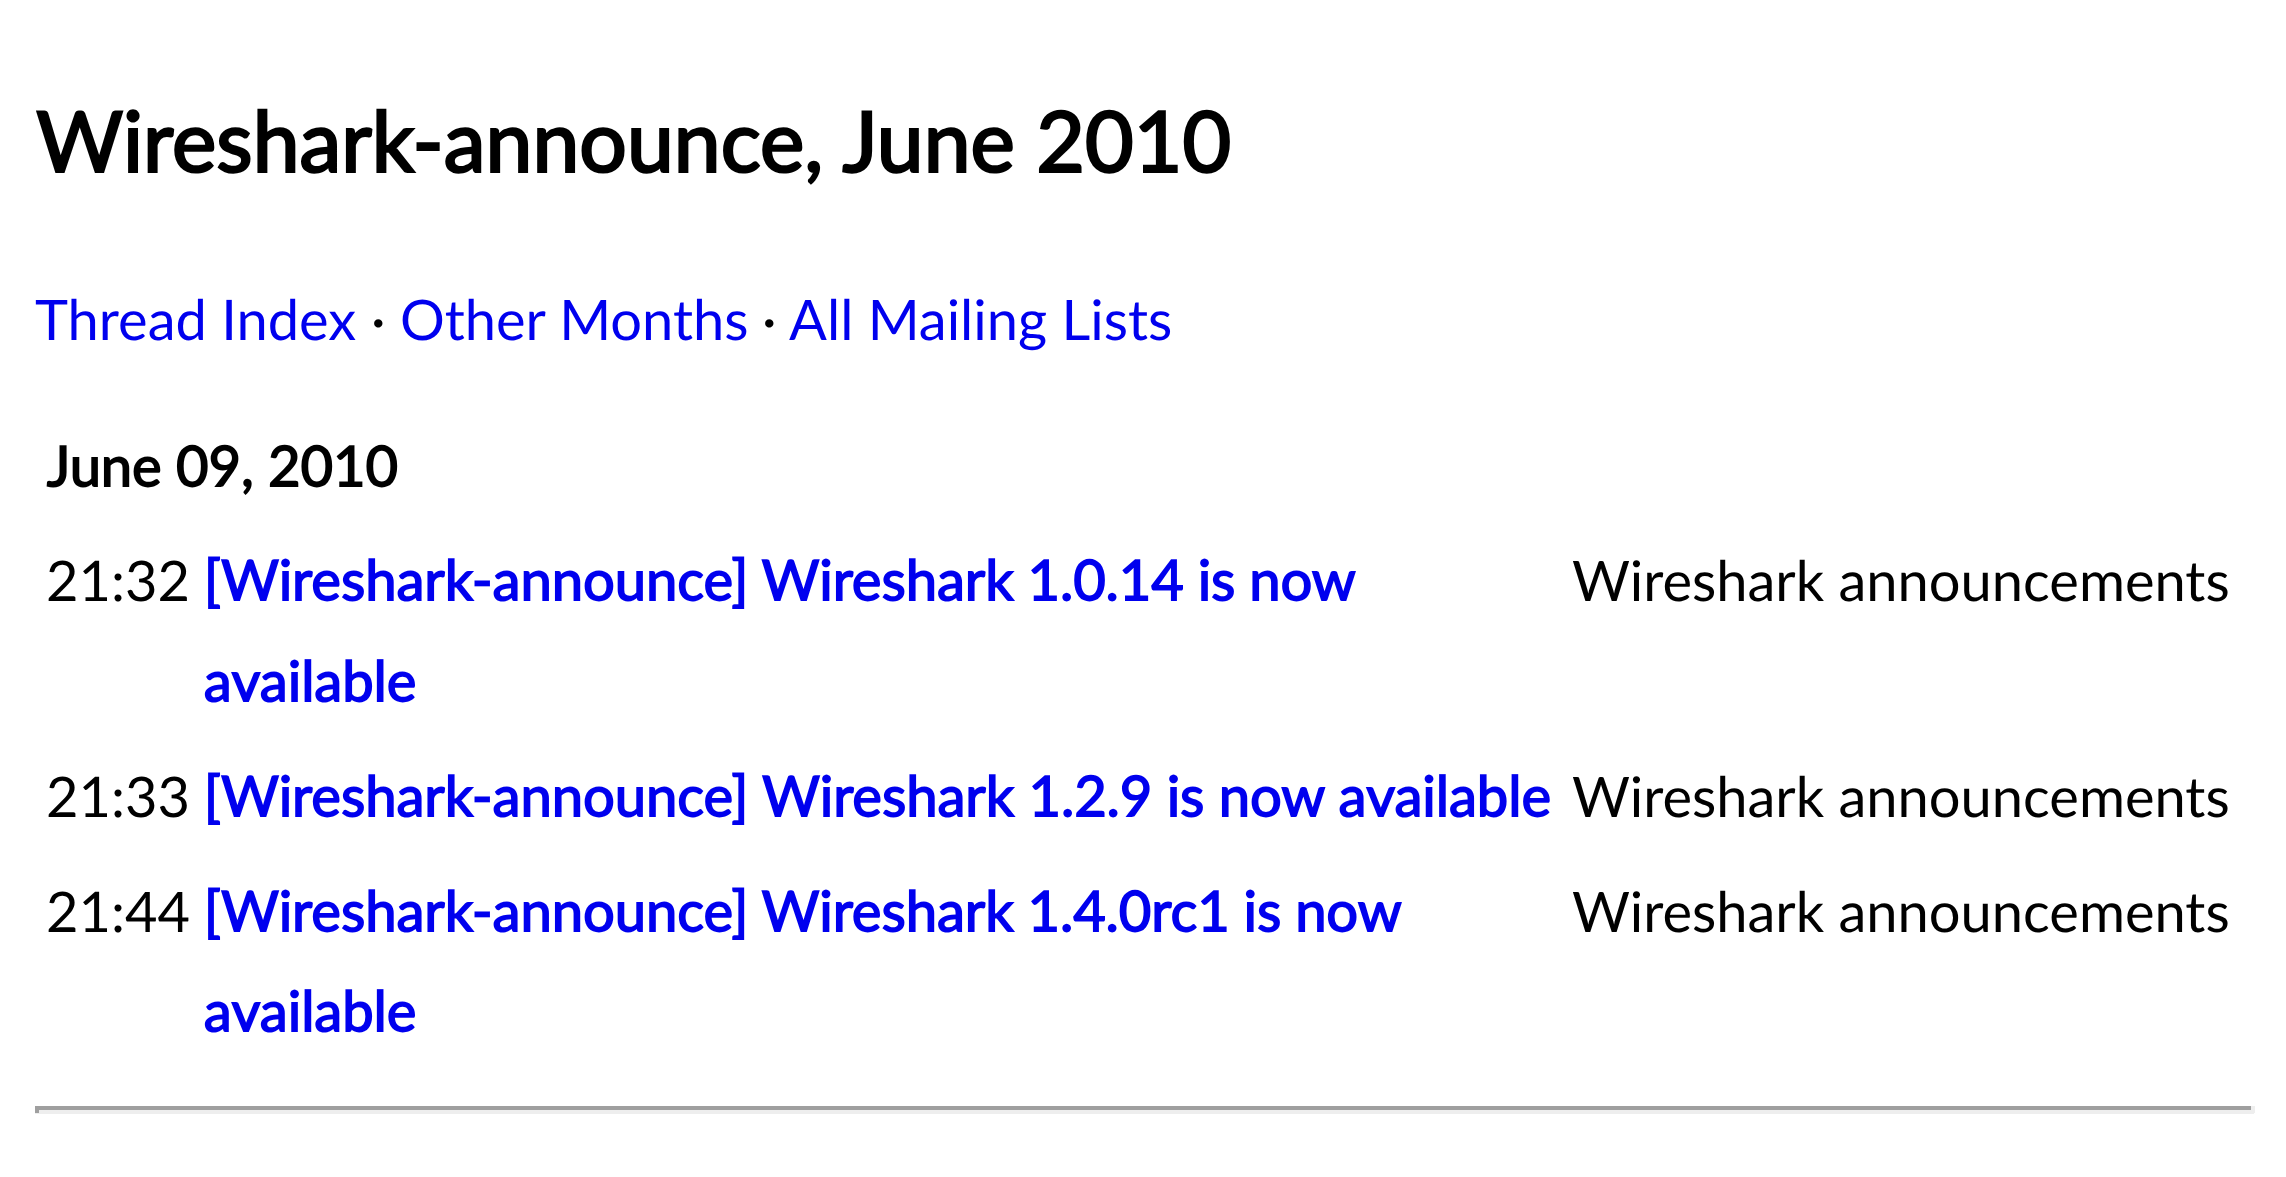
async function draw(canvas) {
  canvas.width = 2286
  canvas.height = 1177
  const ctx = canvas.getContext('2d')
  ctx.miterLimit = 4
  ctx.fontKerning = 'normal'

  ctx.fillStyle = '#fff'
  ctx.fillRect(0, 0, 2286, 1177)
  ctx.font = 'bold 84px Lato'
  ctx.fillStyle = '#000'
  ctx.fillText('Wireshark-announce, June 2010', 35, 173)
  ctx.font = '56px Lato'
  ctx.fillStyle = '#00e'
  ctx.fillText('Thread Index', 35, 340)
  ctx.fillStyle = '#000'
  ctx.fillText('·', 371, 340)
  ctx.fillStyle = '#00e'
  ctx.fillText('Other Months', 400, 340)
  ctx.fillStyle = '#000'
  ctx.fillText('·', 762, 340)
  ctx.fillStyle = '#00e'
  ctx.fillText('All Mailing Lists', 789, 340)
  ctx.font = 'bold 56px Lato'
  ctx.fillStyle = '#000'
  ctx.fillText('June 09, 2010', 46, 487)
  ctx.font = '56px Lato'
  ctx.fillText('21:32', 46, 601)
  ctx.wordSpacing = '-0.5px'
  ctx.font = 'bold 56px Lato'
  ctx.fillStyle = '#00e'
  ctx.fillText('[Wireshark-announce] Wireshark 1.0.14 is now', 203, 601)
  ctx.wordSpacing = '0px'
  ctx.fillText('available', 203, 702)
  ctx.font = '56px Lato'
  ctx.fillStyle = '#000'
  ctx.fillText('Wireshark announcements', 1572, 601)
  ctx.fillText('21:33', 46, 817)
  ctx.font = 'bold 56px Lato'
  ctx.fillStyle = '#00e'
  ctx.fillText('[Wireshark-announce] Wireshark 1.2.9 is now available', 203, 817)
  ctx.font = '56px Lato'
  ctx.fillStyle = '#000'
  ctx.fillText('Wireshark announcements', 1572, 817)
  ctx.fillText('21:44', 46, 932)
  ctx.wordSpacing = '-0.5px'
  ctx.font = 'bold 56px Lato'
  ctx.fillStyle = '#00e'
  ctx.fillText('[Wireshark-announce] Wireshark 1.4.0rc1 is now', 203, 932)
  ctx.wordSpacing = '0px'
  ctx.fillText('available', 203, 1032)
  ctx.font = '56px Lato'
  ctx.fillStyle = '#000'
  ctx.fillText('Wireshark announcements', 1572, 932)
  ctx.fillStyle = '#9f9f9f'
  ctx.fillRect(35, 1106, 2219, 4)
  ctx.fillStyle = '#eee'
  ctx.fillRect(2251, 1106, 4, 7)
  ctx.fillRect(35, 1110, 2219, 4)
  ctx.fillStyle = '#9f9f9f'
  ctx.fillRect(35, 1106, 4, 7)
}

draw(document.querySelector('canvas'))
